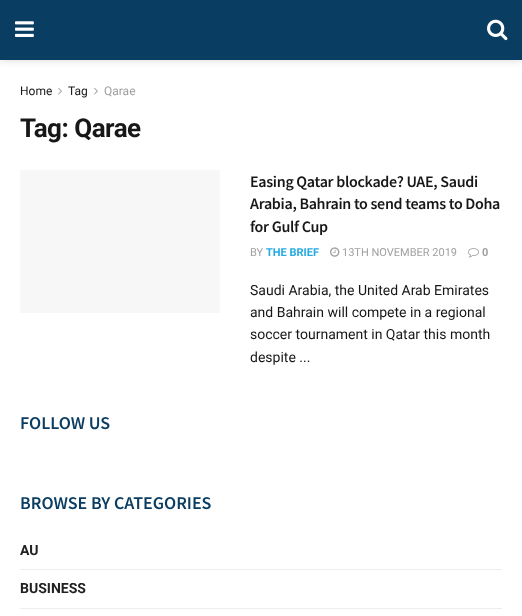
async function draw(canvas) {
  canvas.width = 522
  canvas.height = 616
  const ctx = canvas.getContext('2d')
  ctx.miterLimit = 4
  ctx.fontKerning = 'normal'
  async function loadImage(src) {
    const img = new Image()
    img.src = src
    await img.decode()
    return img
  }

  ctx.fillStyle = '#fff'
  ctx.fillRect(0, 0, 522, 616)
  ctx.fillStyle = '#0000001a'
  ctx.filter = 'blur(3px)'
  ctx.beginPath()
  ctx.rect(0, 2, 522, 60)
  ctx.fill()
  ctx.filter = 'none'
  ctx.fillStyle = '#0a3d62'
  ctx.fillRect(0, 0, 522, 60)
  ctx.drawImage(await loadImage('image0.png'), 15, 21, 19, 16)
  ctx.drawImage(await loadImage('image1.png'), 487, 19, 21, 22)
  ctx.font = '12px Roboto'
  ctx.fillStyle = '#171717'
  ctx.fillText('Home', 20, 95)
  ctx.drawImage(await loadImage('image2.png'), 58, 87, 4, 8)
  ctx.fillText('Tag', 68, 95)
  ctx.drawImage(await loadImage('image2.png'), 94, 87, 4, 8)
  ctx.fillStyle = '#a0a0a0'
  ctx.fillText('Qarae', 104, 95)
  ctx.letterSpacing = '-0.5px'
  ctx.font = 'bold 26px Roboto'
  ctx.fillStyle = '#171717'
  ctx.fillText('Tag: Qarae', 20, 137)
  ctx.fillStyle = '#f7f7f7'
  ctx.fillRect(20, 170, 200, 143)
  ctx.letterSpacing = '-0.3px'
  ctx.font = '600 16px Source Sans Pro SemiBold'
  ctx.fillStyle = '#171717'
  ctx.fillText('Easing Qatar blockade? UAE, Saudi', 250, 187)
  ctx.fillText('Arabia, Bahrain to send teams to Doha', 250, 209)
  ctx.fillText('for Gulf Cup', 250, 232)
  ctx.letterSpacing = '0px'
  ctx.font = '11px Roboto'
  ctx.fillStyle = '#a0a0a0'
  ctx.fillText('BY', 250, 256)
  ctx.font = 'bold 11px Roboto'
  ctx.fillStyle = '#25aae2'
  ctx.fillText('THE BRIEF', 266, 256)
  ctx.drawImage(await loadImage('image3.png'), 330, 247, 10, 10)
  ctx.font = '11px Roboto'
  ctx.fillStyle = '#a0a0a0'
  ctx.fillText('13TH NOVEMBER 2019', 342, 256)
  ctx.drawImage(await loadImage('image4.png'), 468, 248, 11, 10)
  ctx.font = 'bold 11px Roboto'
  ctx.fillText('0', 482, 256)
  ctx.font = '14px Roboto'
  ctx.fillStyle = '#171717'
  ctx.fillText('Saudi Arabia, the United Arab Emirates', 250, 295)
  ctx.fillText('and Bahrain will compete in a regional', 250, 317)
  ctx.fillText('soccer tournament in Qatar this month', 250, 339)
  ctx.fillText('despite ...', 250, 362)
  ctx.font = '600 18px Source Sans Pro SemiBold'
  ctx.fillStyle = '#0a3d61'
  ctx.fillText('FOLLOW US', 20, 429)
  ctx.fillText('BROWSE BY CATEGORIES', 20, 509)
  ctx.font = 'bold 14px Roboto'
  ctx.fillStyle = '#212121'
  ctx.fillText('AU', 20, 555)
  ctx.fillStyle = '#eee'
  ctx.fillRect(20, 569, 482, 1)
  ctx.fillStyle = '#212121'
  ctx.fillText('BUSINESS', 20, 593)
  ctx.fillStyle = '#eee'
  ctx.fillRect(20, 608, 482, 1)
}

draw(document.querySelector('canvas'))
